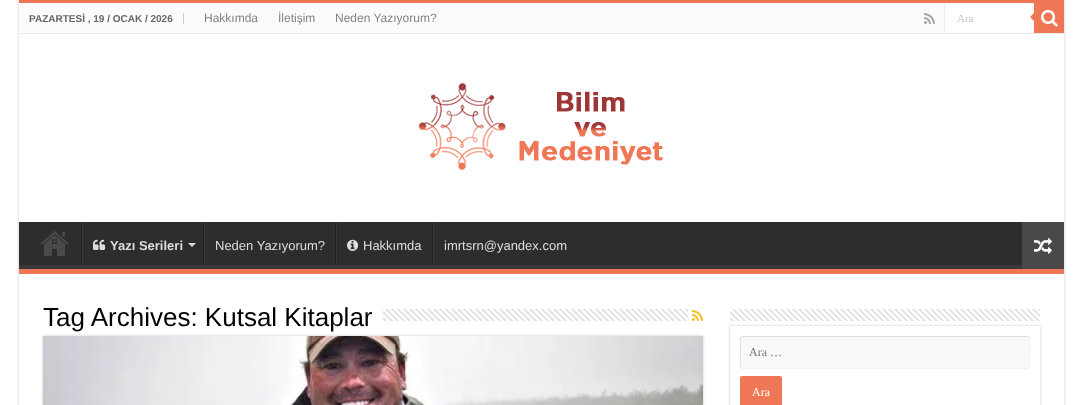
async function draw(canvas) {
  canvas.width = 1083
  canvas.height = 405
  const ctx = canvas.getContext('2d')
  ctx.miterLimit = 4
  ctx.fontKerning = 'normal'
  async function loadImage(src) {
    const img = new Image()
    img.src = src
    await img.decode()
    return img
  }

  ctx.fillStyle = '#fff'
  ctx.fillRect(0, 0, 1083, 405)
  ctx.save()
  ctx.beginPath()
  ctx.moveTo(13, 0)
  ctx.lineTo(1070, 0)
  ctx.lineTo(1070, 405)
  ctx.lineTo(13, 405)
  ctx.closePath()
  ctx.moveTo(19, 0)
  ctx.lineTo(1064, 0)
  ctx.lineTo(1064, 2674)
  ctx.lineTo(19, 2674)
  ctx.closePath()
  ctx.clip('evenodd')
  ctx.fillStyle = '#cacaca'
  ctx.filter = 'blur(1.5px)'
  ctx.beginPath()
  ctx.rect(19, 0, 1045, 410)
  ctx.fill()
  ctx.filter = 'none'
  ctx.restore()
  ctx.fillStyle = '#f07756'
  ctx.fillRect(19, 0, 1045, 3)
  ctx.fillStyle = '#fbfbfb'
  ctx.fillRect(19, 3, 1015, 30)
  ctx.fillStyle = '#ececec'
  ctx.fillRect(19, 33, 1045, 1)
  ctx.fillStyle = '#ccc'
  ctx.fillRect(183, 13, 1, 11)
  ctx.font = 'bold 10px Liberation Sans'
  ctx.fillStyle = '#666'
  ctx.fillText('PAZARTESİ , 19 / OCAK / 2026', 29, 22)
  ctx.font = '12px Liberation Sans'
  ctx.fillStyle = '#838383'
  ctx.fillText('Hakkımda', 204, 22)
  ctx.fillText('İletişim', 278, 22)
  ctx.fillText('Neden Yazıyorum?', 335, 22)
  ctx.drawImage(await loadImage('image0.png'), 924, 13, 11, 11)
  ctx.fillStyle = '#fff'
  ctx.fillRect(945, 3, 89, 29)
  ctx.fillStyle = '#ececec'
  ctx.fillRect(944, 3, 1, 29)
  ctx.font = '11px Liberation Serif'
  ctx.fillStyle = '#c5c5c5'
  ctx.fillText('Ara', 957, 22)
  ctx.fillStyle = '#f07756'
  ctx.fillRect(1034, 3, 30, 30)
  ctx.drawImage(await loadImage('image1.png'), 1041, 9, 17, 18)
  ctx.beginPath()
  ctx.moveTo(1034, 13)
  ctx.lineTo(1034, 21)
  ctx.lineTo(1030, 17)
  ctx.closePath()
  ctx.fill()
  ctx.drawImage(await loadImage('image2.png'), 418, 82, 245, 89)
  ctx.fillStyle = '#2d2d2d'
  ctx.fillRect(19, 222, 1003, 43)
  ctx.save()
  ctx.beginPath()
  ctx.rect(19, 222, 1045, 47)
  ctx.clip()
  ctx.fillStyle = '#393939'
  ctx.beginPath()
  ctx.moveTo(-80, 123)
  ctx.lineTo(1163, 123)
  ctx.lineTo(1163, 368)
  ctx.lineTo(-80, 368)
  ctx.closePath()
  ctx.moveTo(18, 216)
  ctx.lineTo(1064, 216)
  ctx.lineTo(1064, 256)
  ctx.bezierCurveTo(1064, 257, 1065, 265, 1063, 265)
  ctx.lineTo(18, 265)
  ctx.lineTo(17, 264)
  ctx.lineTo(17, 216)
  ctx.closePath()
  ctx.fill('evenodd')
  ctx.restore()
  ctx.fillStyle = '#f07756'
  ctx.fillRect(19, 269, 1045, 5)
  ctx.drawImage(await loadImage('image3.png'), 40, 231, 29, 25)
  ctx.fillStyle = '#222'
  ctx.fillRect(81, 222, 1, 42)
  ctx.fillStyle = '#383838'
  ctx.fillRect(82, 222, 1, 42)
  ctx.drawImage(await loadImage('image4.png'), 93, 239, 13, 11)
  ctx.font = 'bold 13px Liberation Sans'
  ctx.fillStyle = '#ddd'
  ctx.fillText('Yazı Serileri', 110, 250)
  ctx.beginPath()
  ctx.moveTo(188, 243)
  ctx.lineTo(196, 243)
  ctx.lineTo(192, 247)
  ctx.closePath()
  ctx.fill()
  ctx.fillStyle = '#222'
  ctx.fillRect(203, 222, 1, 42)
  ctx.fillStyle = '#383838'
  ctx.fillRect(204, 222, 1, 42)
  ctx.font = '13px Liberation Sans'
  ctx.fillStyle = '#ddd'
  ctx.fillText('Neden Yazıyorum?', 215, 250)
  ctx.fillStyle = '#222'
  ctx.fillRect(335, 222, 1, 42)
  ctx.fillStyle = '#383838'
  ctx.fillRect(336, 222, 1, 42)
  ctx.drawImage(await loadImage('image5.png'), 347, 239, 12, 12)
  ctx.fillStyle = '#ddd'
  ctx.fillText('Hakkımda', 363, 250)
  ctx.fillStyle = '#222'
  ctx.fillRect(432, 222, 1, 42)
  ctx.fillStyle = '#383838'
  ctx.fillRect(433, 222, 1, 42)
  ctx.fillStyle = '#ddd'
  ctx.fillText('imrtsrn@yandex.com', 444, 250)
  ctx.fillStyle = '#494949'
  ctx.fillRect(1022, 222, 42, 47)
  ctx.drawImage(await loadImage('image6.png'), 1034, 237, 18, 17)
  ctx.fillStyle = '#cacaca'
  ctx.filter = 'blur(1.5px)'
  ctx.beginPath()
  ctx.rect(43, 336, 660, 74)
  ctx.fill()
  ctx.filter = 'none'
  ctx.font = '26px Liberation Sans'
  ctx.fillStyle = '#000'
  ctx.fillText('Tag Archives: Kutsal Kitaplar', 43, 326)
  ctx.drawImage(await loadImage('image7.png'), 383, 309, 305, 12)
  ctx.drawImage(await loadImage('image8.png'), 692, 310, 11, 11)
  ctx.drawImage(await loadImage('image9.png'), 43, 336, 660, 69)
  ctx.save()
  ctx.beginPath()
  ctx.moveTo(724, 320)
  ctx.lineTo(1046, 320)
  ctx.lineTo(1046, 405)
  ctx.lineTo(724, 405)
  ctx.closePath()
  ctx.moveTo(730, 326)
  ctx.lineTo(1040, 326)
  ctx.lineTo(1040, 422)
  ctx.lineTo(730, 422)
  ctx.closePath()
  ctx.clip('evenodd')
  ctx.fillStyle = '#cacaca'
  ctx.filter = 'blur(1.5px)'
  ctx.beginPath()
  ctx.rect(730, 326, 310, 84)
  ctx.fill()
  ctx.filter = 'none'
  ctx.restore()
  ctx.drawImage(await loadImage('image10.png'), 730, 309, 310, 12)
  ctx.fillStyle = '#f9f9f9'
  ctx.beginPath()
  ctx.roundRect(740, 336, 290, 33, 3)
  ctx.fill()
  ctx.beginPath()
  ctx.moveTo(1029, 337)
  ctx.bezierCurveTo(1030.5, 339, 1029.5, 350, 1029.5, 352.5)
  ctx.lineTo(1029.5, 361.5)
  ctx.bezierCurveTo(1029.5, 363.5, 1030.5, 368.5, 1027, 368.5)
  ctx.lineTo(743, 368.5)
  ctx.lineTo(741, 368)
  ctx.strokeStyle = '#f1f1f1'
  ctx.stroke()
  ctx.beginPath()
  ctx.moveTo(741, 368)
  ctx.bezierCurveTo(739.5, 366, 740.5, 355, 740.5, 352.5)
  ctx.lineTo(740.5, 343.5)
  ctx.bezierCurveTo(740.5, 341.5, 739.5, 336.5, 743, 336.5)
  ctx.lineTo(1027, 336.5)
  ctx.lineTo(1029, 337)
  ctx.strokeStyle = '#ddd'
  ctx.stroke()
  ctx.font = '12px Liberation Serif'
  ctx.fillStyle = '#757575'
  ctx.fillText('Ara …', 749, 356)
  ctx.fillStyle = '#f07756'
  ctx.beginPath()
  ctx.roundRect(740, 376, 42, 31, 2)
  ctx.fill()
  ctx.fillStyle = '#fff'
  ctx.fillText('Ara', 752, 396)
}

draw(document.querySelector('canvas'))
